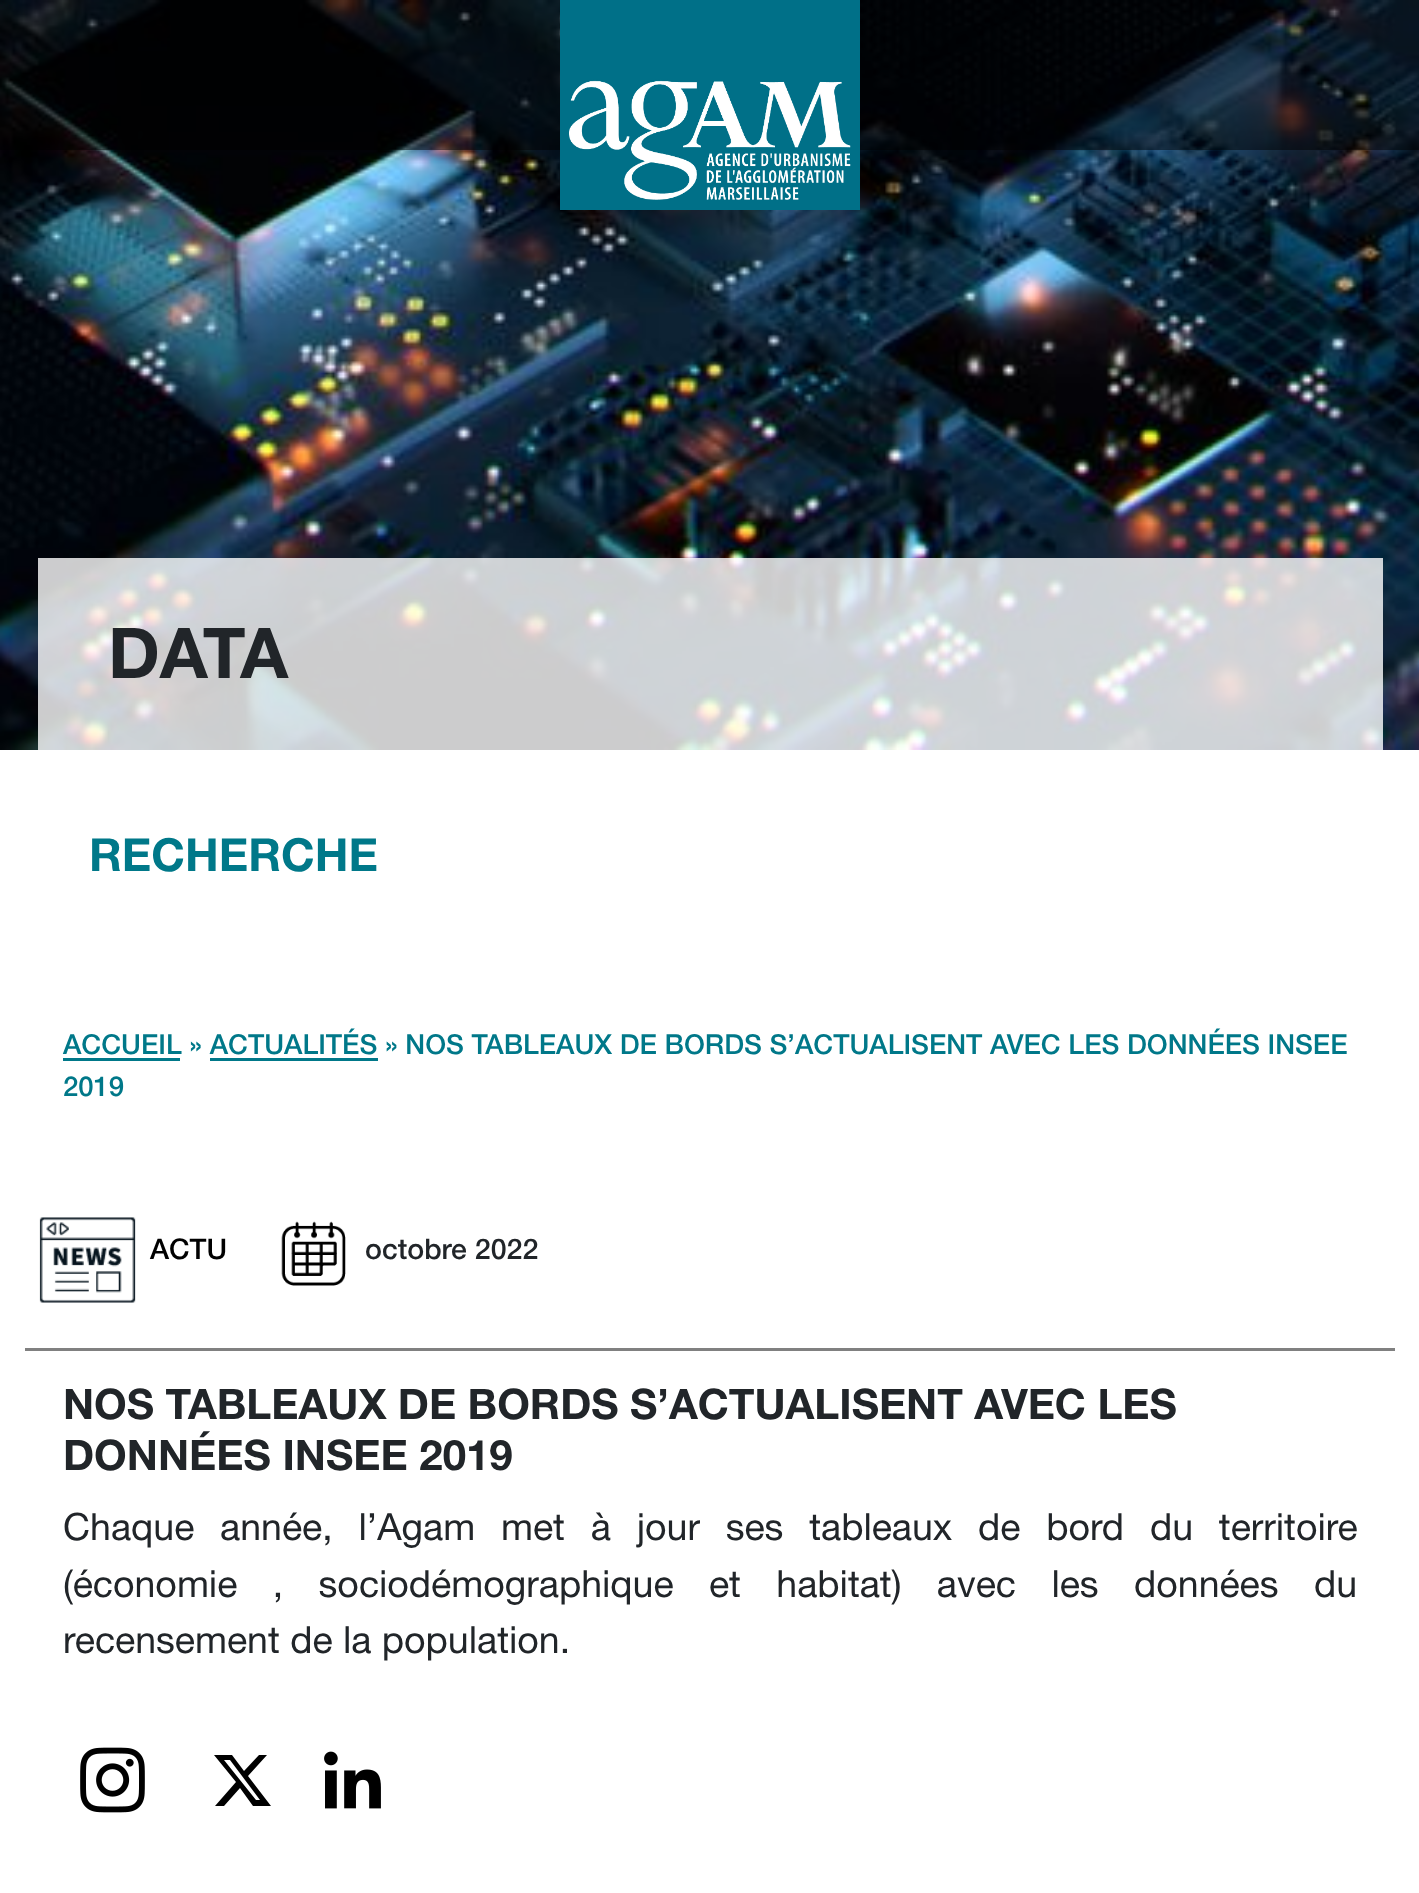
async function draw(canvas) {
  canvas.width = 1419
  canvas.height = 1893
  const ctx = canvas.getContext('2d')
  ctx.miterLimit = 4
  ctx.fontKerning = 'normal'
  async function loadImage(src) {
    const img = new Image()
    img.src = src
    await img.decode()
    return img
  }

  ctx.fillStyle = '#fff'
  ctx.fillRect(0, 0, 1419, 1893)
  ctx.drawImage(await loadImage('image1.png'), 0, 0, 1419, 750)
  ctx.fillStyle = '#00000080'
  ctx.fillRect(0, 0, 1419, 150)
  ctx.drawImage(await loadImage('image0.png'), 560, 0, 300, 210)
  ctx.fillStyle = '#ffffffcc'
  ctx.fillRect(38, 558, 1345, 192)
  ctx.font = 'bold 70px Helvetica Neue'
  ctx.fillStyle = '#212529'
  ctx.fillText('DATA', 108, 678)
  ctx.font = 'bold 45.5px Helvetica Neue'
  ctx.fillStyle = '#007889'
  ctx.fillText('RECHERCHE', 89, 871)
  ctx.font = '500 27.5px Helvetica Neue'
  ctx.fillText('ACCUEIL » ACTUALITÉS » NOS TABLEAUX DE BORDS S’ACTUALISENT AVEC LES DONNÉES INSEE', 63, 1054)
  ctx.fillRect(63, 1058, 117, 3)
  ctx.fillRect(210, 1058, 168, 3)
  ctx.fillText('2019', 63, 1096)
  ctx.fillStyle = '#808080'
  ctx.fillRect(25, 1348, 1370, 3)
  ctx.drawImage(await loadImage('image2.png'), 39, 1217, 97, 86)
  ctx.font = '500 28.5px Helvetica Neue'
  ctx.fillStyle = '#000'
  ctx.fillText('ACTU', 150, 1259)
  ctx.drawImage(await loadImage('image3.png'), 281, 1221, 65, 65)
  ctx.fillStyle = '#212529'
  ctx.fillText('octobre 2022', 365, 1259)
  ctx.wordSpacing = '-0.25px'
  ctx.font = 'bold 42px Helvetica Neue'
  ctx.fillText('NOS TABLEAUX DE BORDS S’ACTUALISENT AVEC LES', 63, 1419)
  ctx.wordSpacing = '0px'
  ctx.fillText('DONNÉES INSEE 2019', 63, 1470)
  ctx.wordSpacing = '15.4px'
  ctx.font = '37.5px Helvetica Neue'
  ctx.fillText('Chaque année, l’Agam met à jour ses tableaux de bord du territoire', 63, 1540)
  ctx.wordSpacing = '25px'
  ctx.fillText('(économie , sociodémographique et habitat) avec les données du', 63, 1597)
  ctx.wordSpacing = '0px'
  ctx.fillText('recensement de la population.', 63, 1653)
  ctx.drawImage(await loadImage('image4.png'), 80, 1747, 65, 66)
  ctx.fillStyle = '#000'
  ctx.beginPath()
  ctx.moveTo(259, 1755)
  ctx.lineTo(267, 1755)
  ctx.lineTo(248, 1776)
  ctx.lineTo(271, 1806)
  ctx.lineTo(253, 1806)
  ctx.lineTo(240, 1788)
  ctx.lineTo(224, 1806)
  ctx.lineTo(215, 1806)
  ctx.lineTo(236, 1782)
  ctx.lineTo(214, 1755)
  ctx.lineTo(232, 1755)
  ctx.lineTo(244, 1771)
  ctx.closePath()
  ctx.moveTo(256, 1800)
  ctx.lineTo(260, 1800)
  ctx.lineTo(230, 1760)
  ctx.lineTo(224, 1760)
  ctx.closePath()
  ctx.fill()
  ctx.drawImage(await loadImage('image5.png'), 324, 1751, 57, 58)
}

draw(document.querySelector('canvas'))
